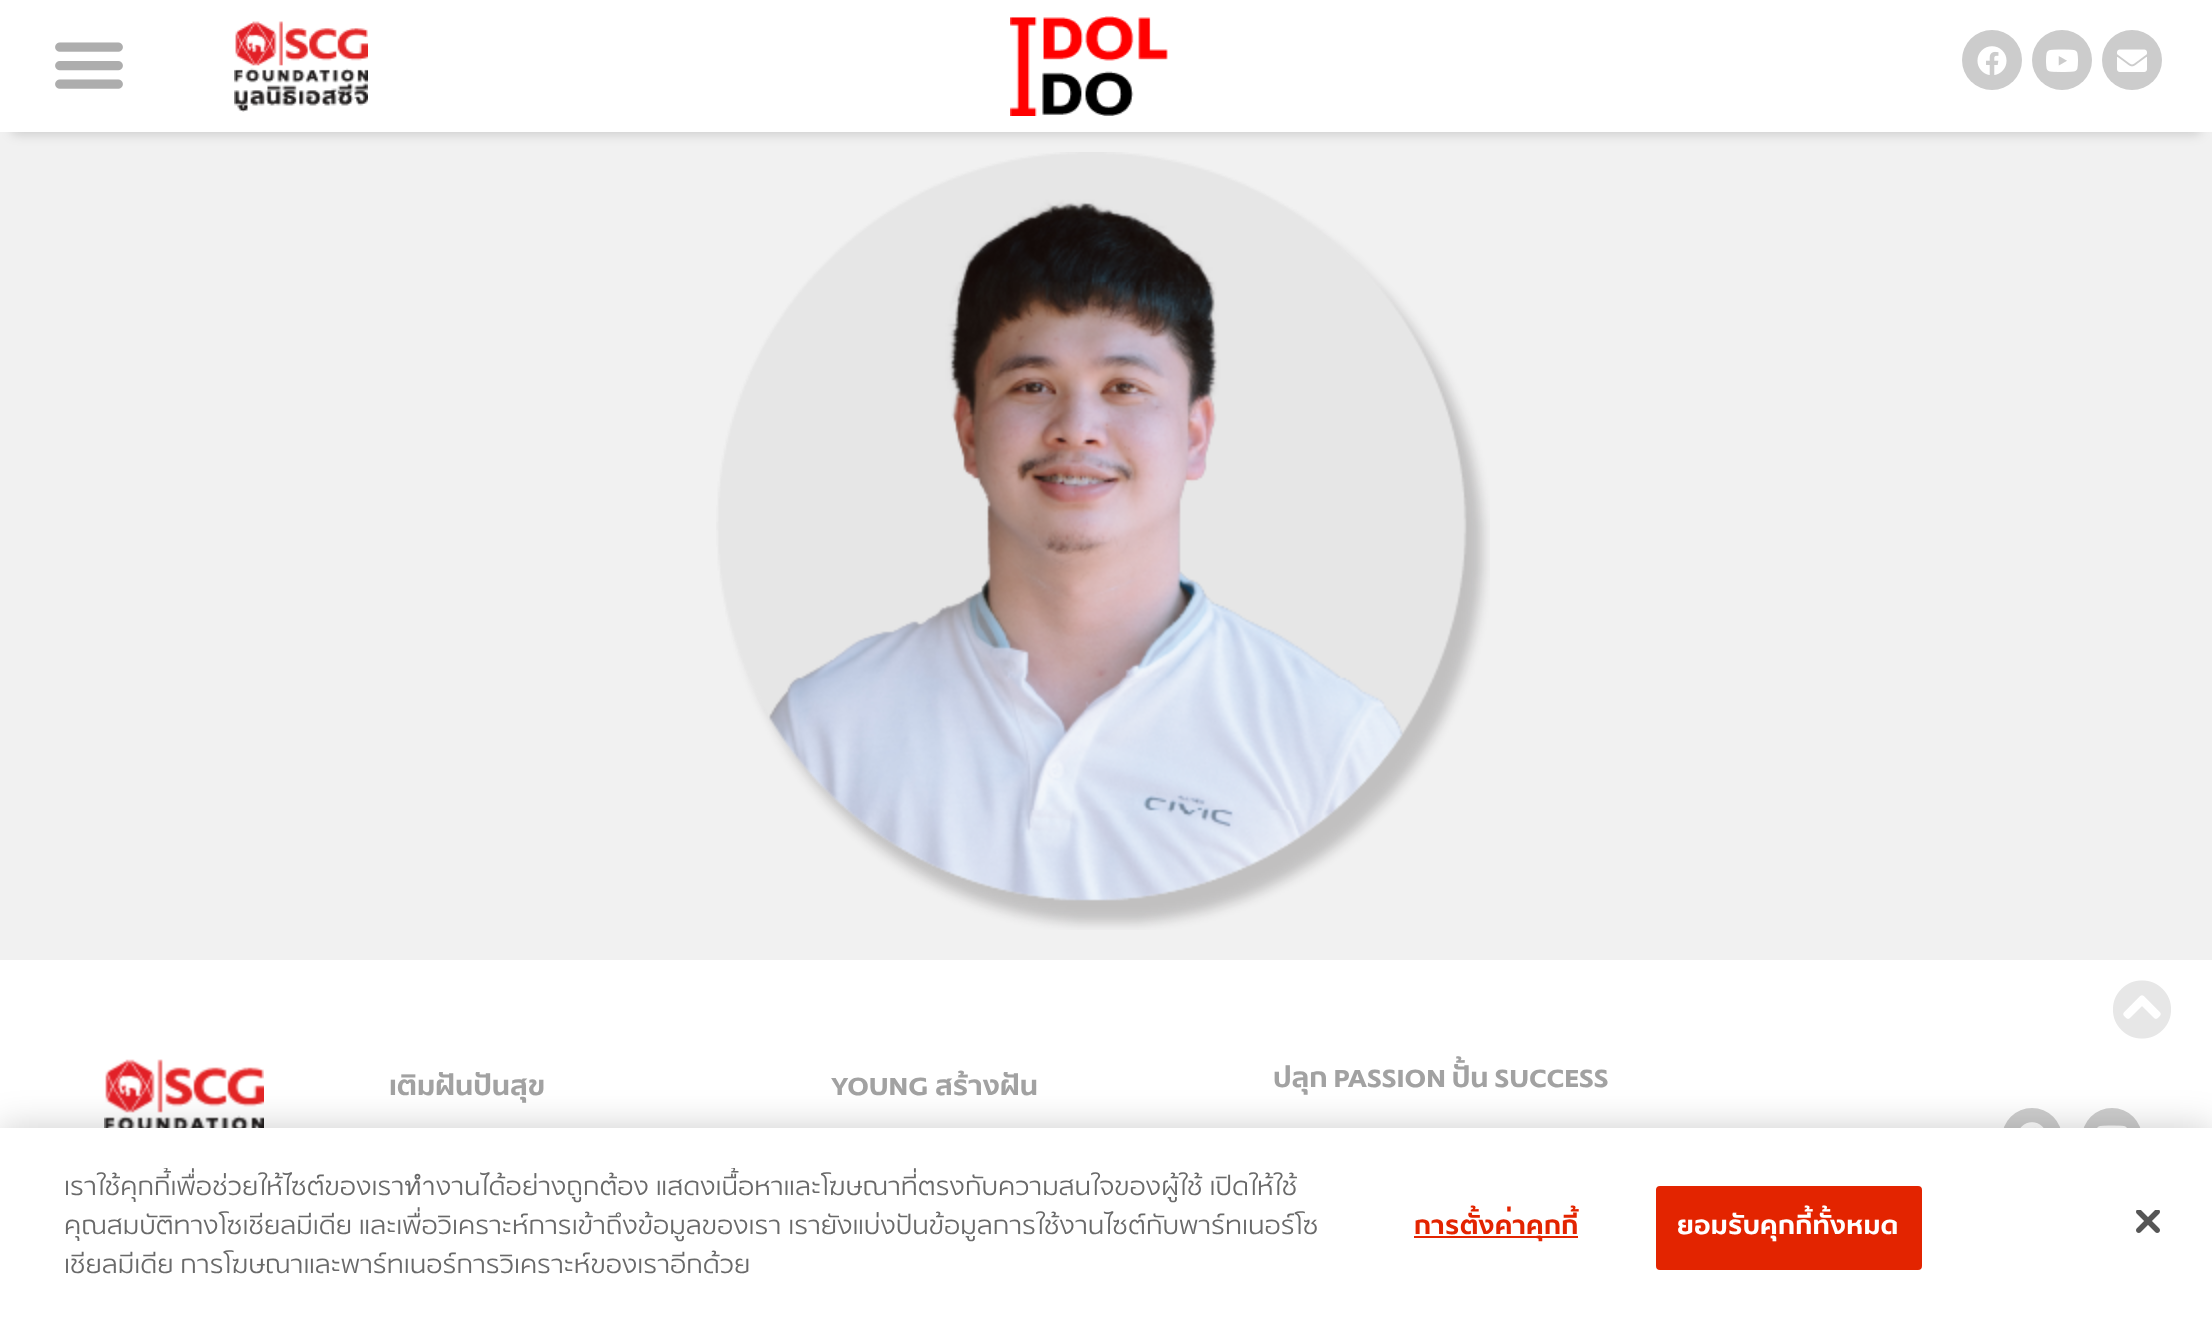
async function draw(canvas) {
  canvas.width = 2212
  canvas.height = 1331
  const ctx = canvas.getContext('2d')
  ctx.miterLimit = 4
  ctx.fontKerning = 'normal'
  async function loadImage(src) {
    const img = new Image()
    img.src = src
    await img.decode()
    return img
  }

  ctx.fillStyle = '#f1f1f1'
  ctx.fillRect(0, 0, 2212, 1331)
  ctx.drawImage(await loadImage('image6.png'), 716, 152, 774, 778)
  ctx.fillStyle = '#02010129'
  ctx.filter = 'blur(6px)'
  ctx.beginPath()
  ctx.rect(12, 26, 2188, 108)
  ctx.fill()
  ctx.filter = 'none'
  ctx.fillStyle = '#fff'
  ctx.fillRect(0, 0, 2212, 132)
  ctx.drawImage(await loadImage('image0.png'), 55, 42, 68, 47)
  ctx.drawImage(await loadImage('image1.png'), 234, 21, 134, 91)
  ctx.drawImage(await loadImage('image2.png'), 1010, 16, 158, 100)
  ctx.fillStyle = '#ccc'
  ctx.beginPath()
  ctx.arc(1992, 60, 30, 0, 2 * Math.PI)
  ctx.fill()
  ctx.drawImage(await loadImage('image3.png'), 1977, 46, 30, 29)
  ctx.beginPath()
  ctx.arc(2062, 60, 30, 0, 2 * Math.PI)
  ctx.fill()
  ctx.drawImage(await loadImage('image4.png'), 2046, 49, 32, 23)
  ctx.beginPath()
  ctx.arc(2132, 60, 30, 0, 2 * Math.PI)
  ctx.fill()
  ctx.drawImage(await loadImage('image5.png'), 2117, 49, 30, 23)
  ctx.fillStyle = '#fff'
  ctx.fillRect(0, 960, 2212, 168)
  ctx.drawImage(await loadImage('image7.png'), 2113, 980, 58, 59)
  ctx.drawImage(await loadImage('image8.png'), 104, 1059, 160, 69)
  ctx.font = 'bold 28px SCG'
  ctx.fillStyle = '#a2a2a2'
  ctx.fillText('เติมฝันปันสุข', 389, 1095)
  ctx.fillText('YOUNG สร้างฝัน', 831, 1095)
  ctx.wordSpacing = '-1px'
  ctx.fillText('ปลุก PASSION ปั้น SUCCESS', 1273, 1087)
  ctx.fillStyle = '#cecece'
  ctx.beginPath()
  ctx.arc(2032, 1138, 30, 0, 2 * Math.PI)
  ctx.fill()
  ctx.drawImage(await loadImage('image9.png'), 2020, 1122, 24, 6)
  ctx.beginPath()
  ctx.arc(2112, 1138, 30, 0, 2 * Math.PI)
  ctx.fill()
  ctx.drawImage(await loadImage('image10.png'), 2097, 1125, 30, 3)
  ctx.fillStyle = '#00000033'
  ctx.filter = 'blur(18px)'
  ctx.beginPath()
  ctx.rect(0, 1128, 2212, 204)
  ctx.fill()
  ctx.filter = 'none'
  ctx.fillStyle = '#fff'
  ctx.fillRect(0, 1128, 2212, 203)
  ctx.save()
  ctx.beginPath()
  ctx.rect(64, 1168, 1264, 144)
  ctx.clip()
  ctx.wordSpacing = '0px'
  ctx.font = '26px SCG'
  ctx.fillStyle = '#696969'
  ctx.fillText('เราใช้คุกกี้เพื่อช่วยให้ไซต์ของเราทำงานได้อย่างถูกต้อง แสดงเนื้อหาและโฆษณาที่ตรงกับความสนใจของผู้ใช้ เปิดให้ใช้', 64, 1195)
  ctx.fillText('คุณสมบัติทางโซเชียลมีเดีย และเพื่อวิเคราะห์การเข้าถึงข้อมูลของเรา เรายังแบ่งปันข้อมูลการใช้งานไซต์กับพาร์ทเนอร์โซ', 64, 1234)
  ctx.fillText('เชียลมีเดีย การโฆษณาและพาร์ทเนอร์การวิเคราะห์ของเราอีกด้วย', 64, 1273)
  ctx.restore()
  ctx.fillStyle = '#e32400'
  ctx.fillRect(1414, 1236, 164, 2)
  ctx.letterSpacing = '0.25px'
  ctx.wordSpacing = '0px'
  ctx.font = 'bold 26px SCG'
  ctx.fillText('การตั้งค่าคุกกี้', 1414, 1234)
  ctx.beginPath()
  ctx.roundRect(1657, 1187, 264, 82, 3)
  ctx.fill()
  ctx.strokeStyle = '#e32400'
  ctx.lineWidth = 2
  ctx.stroke()
  ctx.fillStyle = '#fff'
  ctx.fillText('ยอมรับคุกกี้ทั้งหมด', 1677, 1234)
  ctx.drawImage(await loadImage('image11.png'), 2136, 1210, 24, 23)
}

draw(document.querySelector('canvas'))
